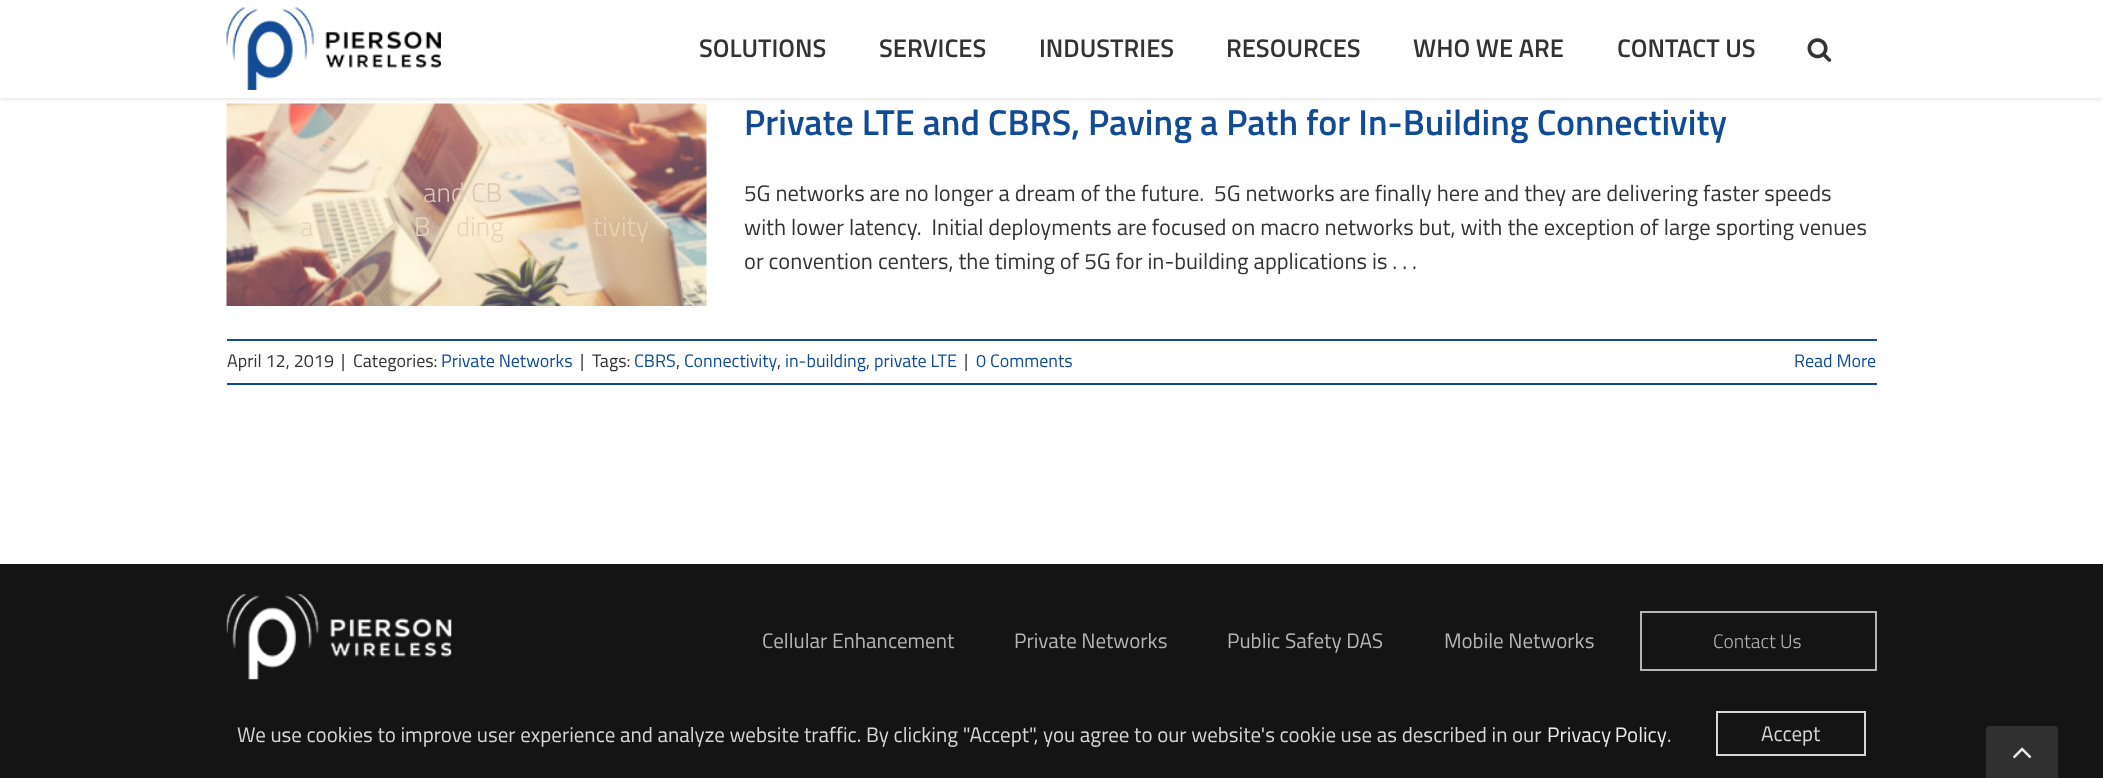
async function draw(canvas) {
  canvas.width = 2103
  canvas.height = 778
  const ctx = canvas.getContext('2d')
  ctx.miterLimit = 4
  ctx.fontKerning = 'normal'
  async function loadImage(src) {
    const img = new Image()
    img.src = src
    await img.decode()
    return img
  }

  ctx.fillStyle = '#fff'
  ctx.fillRect(0, 0, 2103, 778)
  ctx.drawImage(await loadImage('image2.png'), 226, 103, 481, 203)
  ctx.fillStyle = '#0000001f'
  ctx.filter = 'blur(2px)'
  ctx.beginPath()
  ctx.rect(0, 2, 2103, 97)
  ctx.fill()
  ctx.filter = 'none'
  ctx.fillStyle = '#fff'
  ctx.fillRect(0, 0, 2103, 98)
  ctx.drawImage(await loadImage('image0.png'), 226, 7, 215, 83)
  ctx.font = '600 25.5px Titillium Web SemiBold'
  ctx.fillStyle = '#333'
  ctx.fillText('SOLUTIONS', 699, 57)
  ctx.fillText('SERVICES', 879, 57)
  ctx.fillText('INDUSTRIES', 1039, 57)
  ctx.fillText('RESOURCES', 1226, 57)
  ctx.fillText('WHO WE ARE', 1413, 57)
  ctx.fillText('CONTACT US', 1617, 57)
  ctx.drawImage(await loadImage('image1.png'), 1807, 38, 25, 24)
  ctx.font = '300 27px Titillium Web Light'
  ctx.fillStyle = '#dbc8b4'
  ctx.fillText('and CB', 423, 202)
  ctx.fillStyle = '#e7d4b8'
  ctx.fillText('a', 300, 236)
  ctx.fillText('B', 414, 236)
  ctx.fillText('ding', 456, 236)
  ctx.fillText('tivity', 593, 236)
  ctx.font = '600 36px Titillium Web SemiBold'
  ctx.fillStyle = '#114b95'
  ctx.fillText('Private LTE and CBRS, Paving a Path for In-Building Connectivity', 744, 135)
  ctx.font = '22.5px Titillium Web'
  ctx.fillStyle = '#333'
  ctx.fillText('5G networks are no longer a dream of the future.  5G networks are finally here and they are delivering faster speeds', 744, 201)
  ctx.fillText('with lower latency.  Initial deployments are focused on macro networks but, with the exception of large sporting venues', 744, 235)
  ctx.fillText('or convention centers, the timing of 5G for in-building applications is . . .', 744, 269)
  ctx.fillStyle = '#114b95'
  ctx.fillRect(227, 339, 1650, 2)
  ctx.fillRect(227, 383, 1650, 2)
  ctx.font = '18px Titillium Web'
  ctx.fillStyle = '#333'
  ctx.fillText('April 12, 2019', 227, 367)
  ctx.fillText('|', 341, 367)
  ctx.fillText('Categories:', 353, 367)
  ctx.fillStyle = '#114b95'
  ctx.fillText('Private Networks', 441, 367)
  ctx.fillStyle = '#333'
  ctx.fillText('|', 580, 367)
  ctx.fillText('Tags:', 592, 367)
  ctx.fillStyle = '#114b95'
  ctx.fillText('CBRS', 634, 367)
  ctx.fillStyle = '#333'
  ctx.fillText(',', 676, 367)
  ctx.fillStyle = '#114b95'
  ctx.fillText('Connectivity', 684, 367)
  ctx.fillStyle = '#333'
  ctx.fillText(',', 777, 367)
  ctx.fillStyle = '#114b95'
  ctx.fillText('in-building', 785, 367)
  ctx.fillStyle = '#333'
  ctx.fillText(',', 866, 367)
  ctx.fillStyle = '#114b95'
  ctx.fillText('private LTE', 874, 367)
  ctx.fillStyle = '#333'
  ctx.fillText('|', 964, 367)
  ctx.fillStyle = '#114b95'
  ctx.fillText('0 Comments', 976, 367)
  ctx.fillText('Read More', 1794, 367)
  ctx.fillStyle = '#141414'
  ctx.fillRect(0, 564, 2103, 214)
  ctx.drawImage(await loadImage('image3.png'), 226, 594, 226, 86)
  ctx.font = '21px Titillium Web'
  ctx.fillStyle = '#b5b5b5'
  ctx.fillText('Cellular Enhancement', 762, 648)
  ctx.fillText('Private Networks', 1014, 648)
  ctx.fillText('Public Safety DAS', 1227, 648)
  ctx.fillText('Mobile Networks', 1444, 648)
  ctx.strokeStyle = '#b5b5b5'
  ctx.lineWidth = 2
  ctx.strokeRect(1641, 612, 235, 58)
  ctx.font = '300 19.5px Titillium Web Light'
  ctx.fillText('Contact Us', 1713, 648)
  ctx.font = '21px Titillium Web'
  ctx.fillStyle = '#d6d6d6'
  ctx.fillText('We use cookies to improve user experience and analyze website traffic. By clicking "Accept", you agree to our website\'s cookie use as described in our', 237, 742)
  ctx.wordSpacing = '-1px'
  ctx.fillStyle = '#eaeaea'
  ctx.fillText('Privacy Policy', 1547, 742)
  ctx.wordSpacing = '0px'
  ctx.fillStyle = '#d6d6d6'
  ctx.fillText('.', 1667, 742)
  ctx.strokeStyle = '#d6d6d6'
  ctx.strokeRect(1717, 712, 148, 43)
  ctx.fillText('Accept', 1761, 741)
  ctx.fillStyle = '#303030'
  ctx.beginPath()
  ctx.moveTo(1989, 726)
  ctx.lineTo(2055, 726)
  ctx.bezierCurveTo(2056.5, 726, 2058, 727.5, 2058, 729)
  ctx.lineTo(2058, 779)
  ctx.lineTo(1986, 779)
  ctx.lineTo(1986, 729)
  ctx.bezierCurveTo(1986, 727.5, 1987.5, 726, 1989, 726)
  ctx.closePath()
  ctx.fill()
  ctx.drawImage(await loadImage('image4.png'), 2013, 747, 19, 12)
}

draw(document.querySelector('canvas'))
